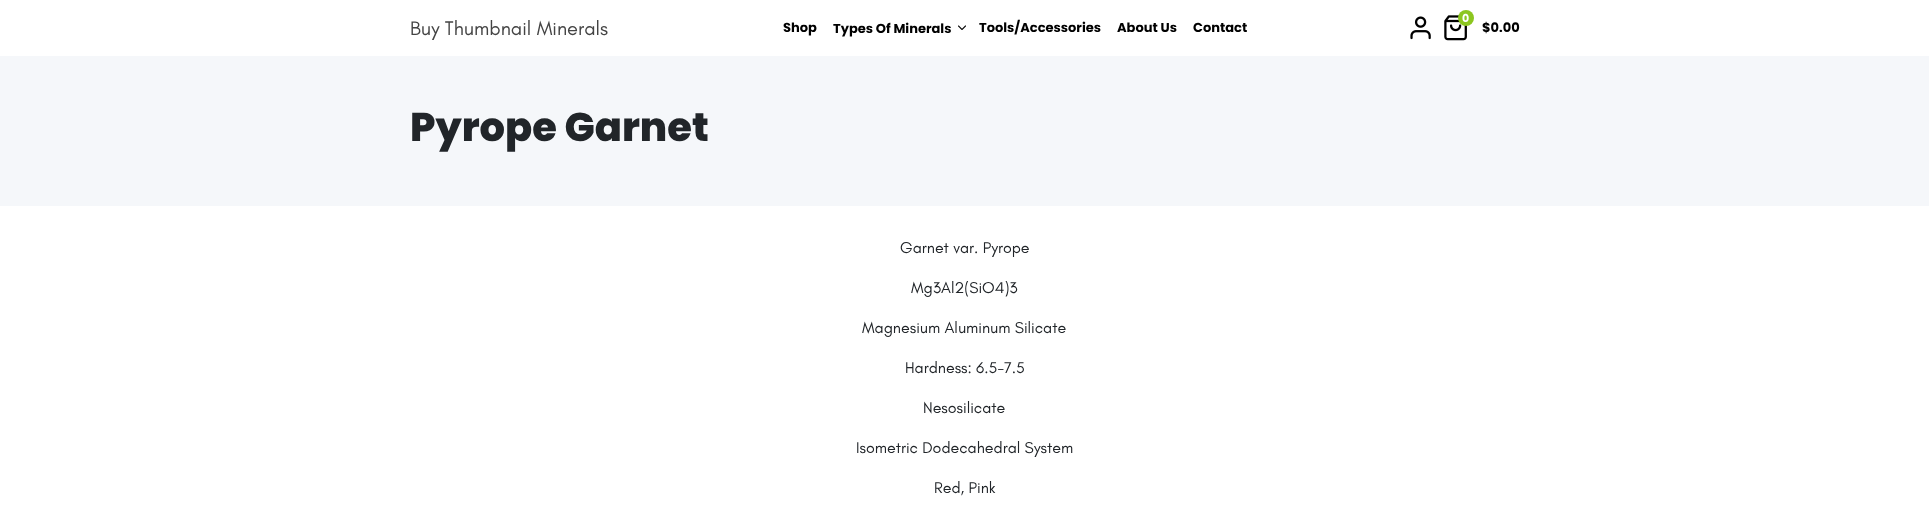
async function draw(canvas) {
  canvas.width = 1929
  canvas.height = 505
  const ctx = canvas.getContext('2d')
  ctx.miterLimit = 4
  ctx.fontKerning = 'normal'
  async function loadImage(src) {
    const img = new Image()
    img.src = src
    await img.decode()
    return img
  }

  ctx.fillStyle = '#fff'
  ctx.fillRect(0, 0, 1929, 505)
  ctx.font = '20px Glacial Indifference'
  ctx.fillStyle = '#444'
  ctx.fillText('Buy Thumbnail Minerals', 410, 35)
  ctx.font = 'bold 13px Poppins'
  ctx.fillStyle = '#000'
  ctx.fillText('Shop', 783, 32)
  ctx.fillText('Types Of Minerals', 833, 33)
  ctx.drawImage(await loadImage('image0.png'), 958, 25, 8, 5)
  ctx.fillText('Tools/Accessories', 979, 32)
  ctx.fillText('About Us', 1117, 32)
  ctx.fillText('Contact', 1193, 32)
  ctx.drawImage(await loadImage('image1.png'), 1410, 16, 21, 24)
  ctx.drawImage(await loadImage('image2.png'), 1444, 15, 23, 26)
  ctx.fillStyle = '#8cc61f'
  ctx.beginPath()
  ctx.arc(1466, 18, 8, 0, 2 * Math.PI)
  ctx.fill()
  ctx.font = 'bold 11px Poppins'
  ctx.fillStyle = '#fff'
  ctx.fillText('0', 1462, 22)
  ctx.font = 'bold 13px Poppins'
  ctx.fillStyle = '#000'
  ctx.fillText('$0.00', 1482, 32)
  ctx.fillStyle = '#f5f7fa'
  ctx.fillRect(0, 56, 1929, 150)
  ctx.font = '800 40px Poppins'
  ctx.fillStyle = '#212529'
  ctx.fillText('Pyrope Garnet', 410, 141)
  ctx.font = '16px Glacial Indifference'
  ctx.fillText('Garnet var. Pyrope', 900, 253)
  ctx.fillText('Mg3Al2(SiO4)3', 911, 293)
  ctx.fillText('Magnesium Aluminum Silicate', 862, 333)
  ctx.fillText('Hardness: 6.5-7.5', 905, 373)
  ctx.fillText('Nesosilicate', 923, 413)
  ctx.fillText('Isometric Dodecahedral System', 856, 453)
  ctx.fillText('Red, Pink', 934, 493)
}

draw(document.querySelector('canvas'))
